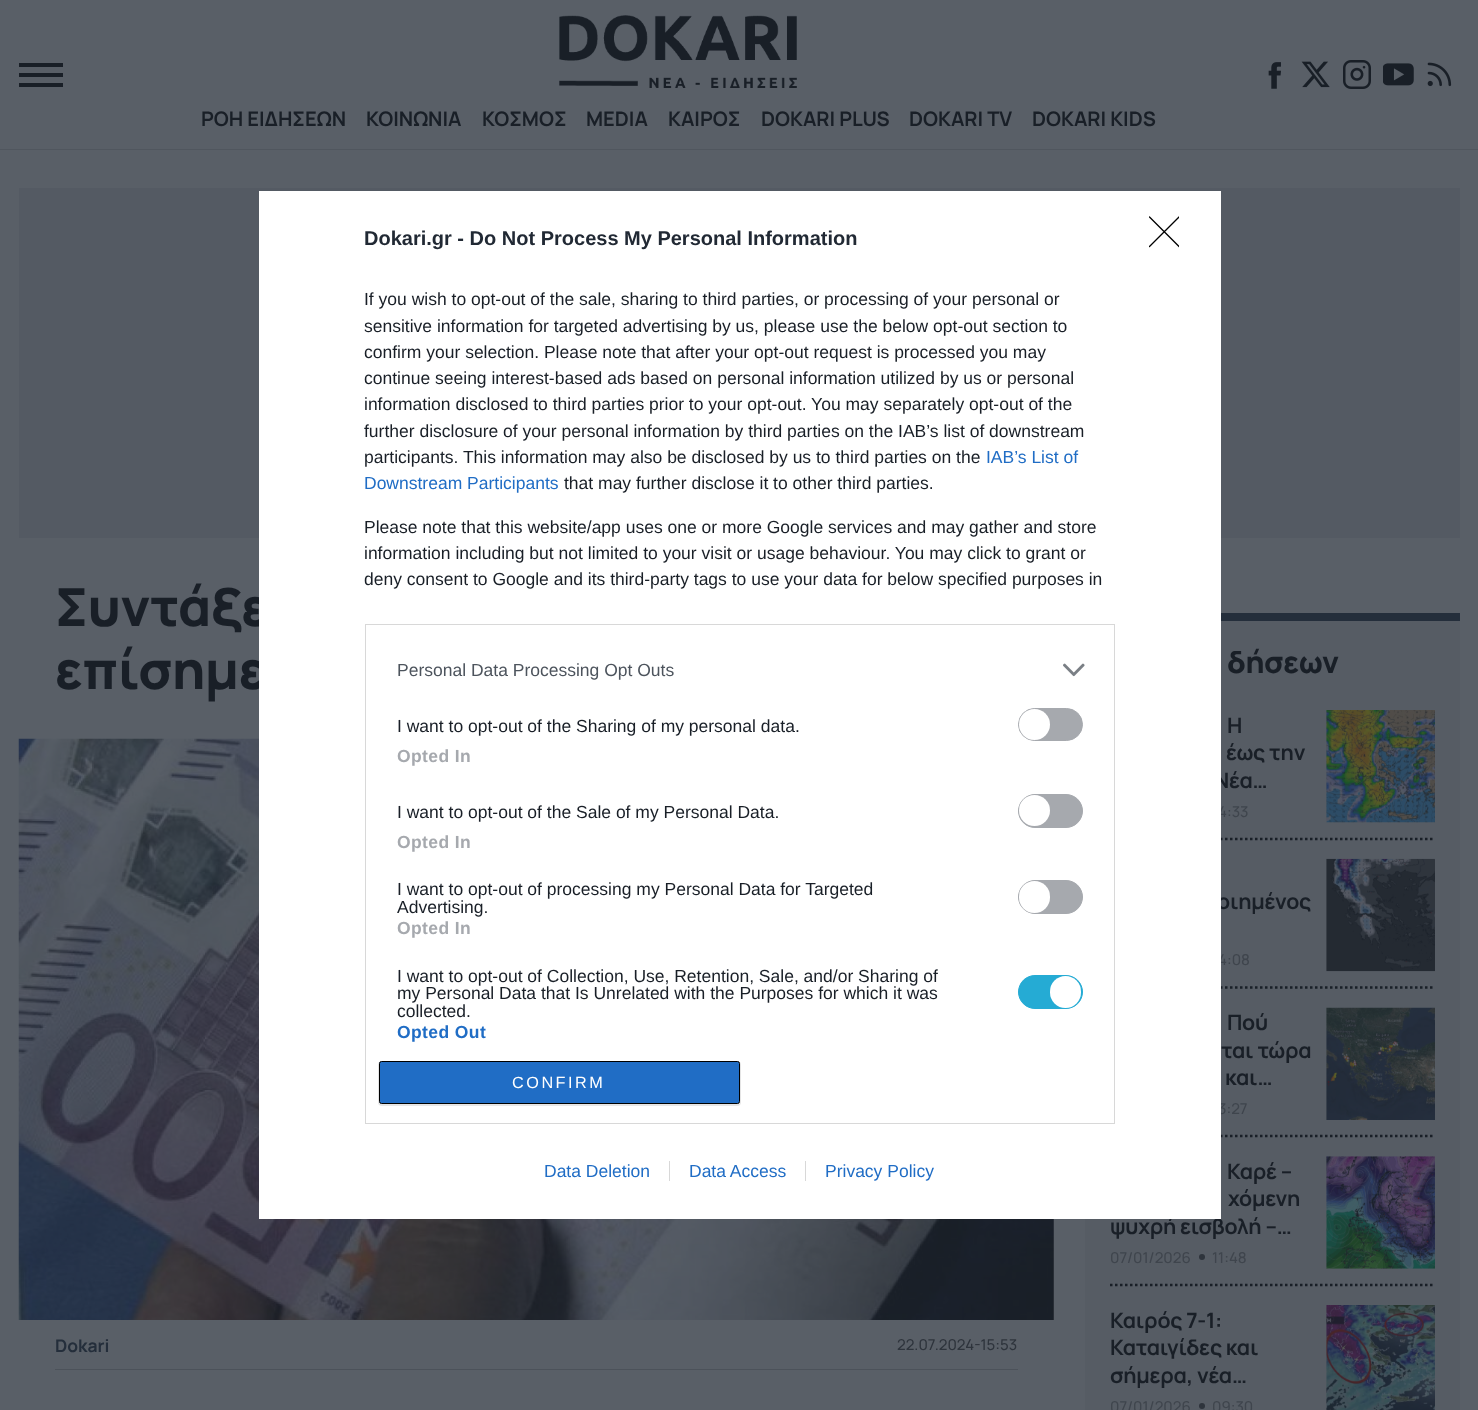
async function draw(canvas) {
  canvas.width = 1478
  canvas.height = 1410
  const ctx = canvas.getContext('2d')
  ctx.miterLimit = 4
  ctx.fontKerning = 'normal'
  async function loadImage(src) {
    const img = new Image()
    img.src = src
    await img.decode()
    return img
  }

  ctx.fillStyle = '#595f67'
  ctx.fillRect(0, 0, 1478, 1410)
  ctx.fillStyle = '#50565e'
  ctx.fillRect(0, 149, 1478, 1)
  ctx.fillStyle = '#191f27'
  ctx.fillRect(19, 63, 44, 4)
  ctx.fillRect(19, 73, 44, 4)
  ctx.fillRect(19, 83, 44, 4)
  ctx.drawImage(await loadImage('image0.png'), 1268, 62, 13, 27)
  ctx.drawImage(await loadImage('image1.png'), 1301, 61, 29, 27)
  ctx.drawImage(await loadImage('image2.png'), 1343, 60, 28, 29)
  ctx.drawImage(await loadImage('image3.png'), 1383, 63, 31, 23)
  ctx.drawImage(await loadImage('image4.png'), 1427, 62, 25, 25)
  ctx.drawImage(await loadImage('image5.png'), 559, 15, 238, 73)
  ctx.font = 'bold 20px Manrope'
  ctx.fillText('ΡΟΗ ΕΙΔΗΣΕΩΝ', 201, 126)
  ctx.fillText('ΚΟΙΝΩΝΙΑ', 366, 126)
  ctx.fillText('ΚΟΣΜΟΣ', 482, 126)
  ctx.fillText('MEDIA', 586, 126)
  ctx.fillText('ΚΑΙΡΟΣ', 668, 126)
  ctx.fillText('DOKARI PLUS', 761, 126)
  ctx.fillText('DOKARI TV', 909, 126)
  ctx.fillText('DOKARI KIDS', 1032, 126)
  ctx.fillStyle = '#545a63'
  ctx.fillRect(19, 188, 1441, 350)
  ctx.letterSpacing = '-0.25px'
  ctx.font = '800 52.5px Manrope'
  ctx.fillStyle = '#191f27'
  ctx.fillText('Συντάξε', 55, 626)
  ctx.fillText('επίσημε', 55, 689)
  ctx.drawImage(await loadImage('image6.png'), 18, 738, 1036, 582)
  ctx.fillStyle = '#4c525a'
  ctx.fillRect(55, 1369, 963, 1)
  ctx.letterSpacing = '0px'
  ctx.font = 'bold 17.5px Manrope'
  ctx.fillStyle = '#242e3b'
  ctx.fillText('Dokari', 55, 1352)
  ctx.font = '500 15px Manrope'
  ctx.fillStyle = '#2e343c'
  ctx.fillText('22.07.2024-15:53', 897, 1350)
  ctx.fillStyle = '#565c64'
  ctx.fillRect(1085, 621, 375, 789)
  ctx.fillStyle = '#242e3b'
  ctx.fillRect(1221, 613, 239, 8)
  ctx.letterSpacing = '-0.25px'
  ctx.font = '800 30px Manrope'
  ctx.fillStyle = '#191f27'
  ctx.fillText('δήσεων', 1227, 673)
  ctx.beginPath()
  ctx.moveTo(1110, 839)
  ctx.lineTo(1435, 839)
  ctx.strokeStyle = '#191f27'
  ctx.lineWidth = 2.5
  ctx.setLineDash([2.5, 2.5])
  ctx.stroke()
  ctx.font = 'bold 21.25px Manrope'
  ctx.fillText('Η', 1227, 733)
  ctx.fillText('έως την', 1226, 760)
  ctx.fillText('Νέα…', 1214, 788)
  ctx.letterSpacing = '0px'
  ctx.font = '500 15px Manrope'
  ctx.fillStyle = '#3f454d'
  ctx.fillText('4:33', 1218, 817)
  ctx.drawImage(await loadImage('image7.png'), 1326, 710, 109, 113)
  ctx.beginPath()
  ctx.moveTo(1110, 987.5)
  ctx.lineTo(1435, 987.5)
  ctx.stroke()
  ctx.letterSpacing = '-0.25px'
  ctx.font = 'bold 21.25px Manrope'
  ctx.fillStyle = '#191f27'
  ctx.fillText('οιημένος', 1217, 909)
  ctx.letterSpacing = '0px'
  ctx.font = '500 15px Manrope'
  ctx.fillStyle = '#3f454d'
  ctx.fillText('4:08', 1218, 965)
  ctx.drawImage(await loadImage('image8.png'), 1326, 858, 109, 114)
  ctx.beginPath()
  ctx.moveTo(1110, 1136)
  ctx.lineTo(1435, 1136)
  ctx.stroke()
  ctx.letterSpacing = '-0.25px'
  ctx.font = 'bold 21.25px Manrope'
  ctx.fillStyle = '#191f27'
  ctx.fillText('Πού', 1227, 1030)
  ctx.fillText('ται τώρα', 1221, 1058)
  ctx.fillText('και…', 1225, 1085)
  ctx.letterSpacing = '0px'
  ctx.font = '500 15px Manrope'
  ctx.fillStyle = '#3f454d'
  ctx.fillText('3:27', 1218, 1114)
  ctx.drawImage(await loadImage('image9.png'), 1326, 1007, 109, 113)
  ctx.beginPath()
  ctx.moveTo(1110, 1285)
  ctx.lineTo(1435, 1285)
  ctx.stroke()
  ctx.letterSpacing = '-0.25px'
  ctx.font = 'bold 21.25px Manrope'
  ctx.fillStyle = '#191f27'
  ctx.fillText('Καρέ –', 1227, 1179)
  ctx.fillText('χόμενη', 1228, 1206)
  ctx.fillText('ψυχρή εισβολή –…', 1110, 1234)
  ctx.letterSpacing = '0px'
  ctx.font = '500 15px Manrope'
  ctx.fillStyle = '#3f454d'
  ctx.fillText('07/01/2026', 1110, 1263)
  ctx.fillStyle = '#2e343c'
  ctx.beginPath()
  ctx.arc(1202, 1257, 3, 0, 2 * Math.PI)
  ctx.fill()
  ctx.fillStyle = '#3f454d'
  ctx.fillText('11:48', 1212, 1263)
  ctx.drawImage(await loadImage('image10.png'), 1326, 1156, 109, 113)
  ctx.letterSpacing = '-0.25px'
  ctx.font = 'bold 21.25px Manrope'
  ctx.fillStyle = '#191f27'
  ctx.fillText('Καιρός 7-1:', 1110, 1328)
  ctx.fillText('Καταιγίδες και', 1110, 1355)
  ctx.fillText('σήμερα, νέα…', 1110, 1383)
  ctx.letterSpacing = '0px'
  ctx.font = '500 15px Manrope'
  ctx.fillStyle = '#3f454d'
  ctx.fillText('07/01/2026', 1110, 1412)
  ctx.fillStyle = '#2e343c'
  ctx.beginPath()
  ctx.arc(1202, 1406, 3, 0, 2 * Math.PI)
  ctx.fill()
  ctx.fillStyle = '#3f454d'
  ctx.fillText('09:30', 1212, 1412)
  ctx.drawImage(await loadImage('image11.png'), 1326, 1305, 109, 105)
  ctx.fillStyle = '#fff'
  ctx.fillRect(259, 191, 962, 1028)
  ctx.font = 'bold 20px Liberation Sans'
  ctx.fillStyle = '#212934'
  ctx.fillText('Dokari.gr - Do Not Process My Personal Information', 364, 245)
  ctx.font = '17.5px Liberation Sans'
  ctx.fillStyle = '#191f27'
  ctx.fillText('If you wish to opt-out of the sale, sharing to third parties, or processing of your personal or', 364, 305)
  ctx.fillText('sensitive information for targeted advertising by us, please use the below opt-out section to', 364, 332)
  ctx.fillText('confirm your selection. Please note that after your opt-out request is processed you may', 364, 358)
  ctx.fillText('continue seeing interest-based ads based on personal information utilized by us or personal', 364, 384)
  ctx.fillText('information disclosed to third parties prior to your opt-out. You may separately opt-out of the', 364, 410)
  ctx.fillText('further disclosure of your personal information by third parties on the IAB’s list of downstream', 364, 437)
  ctx.fillText('participants. This information may also be disclosed by us to third parties on the', 364, 463)
  ctx.fillStyle = '#206dc5'
  ctx.fillText('IAB’s List of', 986, 463)
  ctx.fillText('Downstream Participants', 364, 489)
  ctx.fillStyle = '#191f27'
  ctx.fillText('that may further disclose it to other third parties.', 564, 489)
  ctx.fillText('Please note that this website/app uses one or more Google services and may gather and store', 364, 533)
  ctx.fillText('information including but not limited to your visit or usage behaviour. You may click to grant or', 364, 559)
  ctx.fillText('deny consent to Google and its third-party tags to use your data for below specified purposes in', 364, 585)
  ctx.strokeStyle = '#d8d8d8'
  ctx.lineWidth = 1
  ctx.setLineDash([])
  ctx.strokeRect(365.5, 624.5, 749, 499)
  ctx.fillStyle = '#4d545d'
  ctx.fillText('Personal Data Processing Opt Outs', 397, 676)
  ctx.drawImage(await loadImage('image12.png'), 1063, 663, 22, 14)
  ctx.fillStyle = '#191f27'
  ctx.fillText('I want to opt-out of the Sharing of my personal data.', 397, 732)
  ctx.fillStyle = '#a6a9ae'
  ctx.beginPath()
  ctx.roundRect(1018.5, 708.5, 64, 32, 16)
  ctx.fill()
  ctx.strokeStyle = '#a6a9ae'
  ctx.stroke()
  ctx.fillStyle = '#fff'
  ctx.beginPath()
  ctx.arc(1034.5, 724.5, 15.5, 0, 2 * Math.PI)
  ctx.fill()
  ctx.letterSpacing = '0.4px'
  ctx.font = 'bold 17.5px Liberation Sans'
  ctx.fillStyle = '#a6a9ae'
  ctx.fillText('Opted In', 397, 762)
  ctx.letterSpacing = '0px'
  ctx.font = '17.5px Liberation Sans'
  ctx.fillStyle = '#191f27'
  ctx.fillText('I want to opt-out of the Sale of my Personal Data.', 397, 818)
  ctx.fillStyle = '#a6a9ae'
  ctx.beginPath()
  ctx.roundRect(1018.5, 794.5, 64, 33, 16.5)
  ctx.fill()
  ctx.stroke()
  ctx.fillStyle = '#fff'
  ctx.beginPath()
  ctx.arc(1034.5, 810.5, 15.5, 0, 2 * Math.PI)
  ctx.fill()
  ctx.letterSpacing = '0.4px'
  ctx.font = 'bold 17.5px Liberation Sans'
  ctx.fillStyle = '#a6a9ae'
  ctx.fillText('Opted In', 397, 848)
  ctx.letterSpacing = '0px'
  ctx.font = '17.5px Liberation Sans'
  ctx.fillStyle = '#191f27'
  ctx.fillText('I want to opt-out of processing my Personal Data for Targeted', 397, 895)
  ctx.fillText('Advertising.', 397, 913)
  ctx.fillStyle = '#a6a9ae'
  ctx.beginPath()
  ctx.roundRect(1018.5, 880.5, 64, 33, 16.5)
  ctx.fill()
  ctx.stroke()
  ctx.fillStyle = '#fff'
  ctx.beginPath()
  ctx.roundRect(1019, 881, 31, 32, 15.5)
  ctx.fill()
  ctx.letterSpacing = '0.4px'
  ctx.font = 'bold 17.5px Liberation Sans'
  ctx.fillStyle = '#a6a9ae'
  ctx.fillText('Opted In', 397, 934)
  ctx.letterSpacing = '0px'
  ctx.font = '17.5px Liberation Sans'
  ctx.fillStyle = '#191f27'
  ctx.fillText('I want to opt-out of Collection, Use, Retention, Sale, and/or Sharing of', 397, 982)
  ctx.fillText('my Personal Data that Is Unrelated with the Purposes for which it was', 397, 999)
  ctx.fillText('collected.', 397, 1017)
  ctx.fillStyle = '#25abd4'
  ctx.beginPath()
  ctx.roundRect(1018.5, 975.5, 64, 33, 16.5)
  ctx.fill()
  ctx.strokeStyle = '#25abd4'
  ctx.stroke()
  ctx.fillStyle = '#fff'
  ctx.beginPath()
  ctx.roundRect(1050, 976, 31, 32, 15.5)
  ctx.fill()
  ctx.letterSpacing = '0.4px'
  ctx.font = 'bold 17.5px Liberation Sans'
  ctx.fillStyle = '#206dc5'
  ctx.fillText('Opted Out', 397, 1038)
  ctx.fillStyle = '#0000001a'
  ctx.filter = 'blur(0.5px)'
  ctx.beginPath()
  ctx.roundRect(378, 1061, 363, 45, 4)
  ctx.fill()
  ctx.filter = 'none'
  ctx.fillStyle = '#206dc5'
  ctx.beginPath()
  ctx.roundRect(379.5, 1061.5, 360, 42, 2)
  ctx.fill()
  ctx.strokeStyle = '#000'
  ctx.stroke()
  ctx.letterSpacing = '2.5px'
  ctx.font = '16.25px Liberation Sans'
  ctx.fillStyle = '#fff'
  ctx.fillText('CONFIRM', 512, 1088)
  ctx.save()
  ctx.beginPath()
  ctx.rect(1149, 216, 30, 32)
  ctx.clip()
  ctx.beginPath()
  ctx.moveTo(1149.5, 217)
  ctx.lineTo(1179, 246.5)
  ctx.moveTo(1179, 217)
  ctx.lineTo(1149.5, 246.5)
  ctx.lineWidth = 1.3
  ctx.lineCap = 'round'
  ctx.lineJoin = 'round'
  ctx.stroke()
  ctx.restore()
  ctx.letterSpacing = '0px'
  ctx.font = '17.5px Liberation Sans'
  ctx.fillStyle = '#206dc5'
  ctx.fillText('Data Deletion', 544, 1177)
  ctx.fillText('Data Access', 689, 1177)
  ctx.fillStyle = '#d8d8d8'
  ctx.fillRect(669, 1161, 1, 20)
  ctx.fillStyle = '#206dc5'
  ctx.fillText('Privacy Policy', 825, 1177)
  ctx.fillStyle = '#d8d8d8'
  ctx.fillRect(805, 1161, 1, 20)
}

draw(document.querySelector('canvas'))
